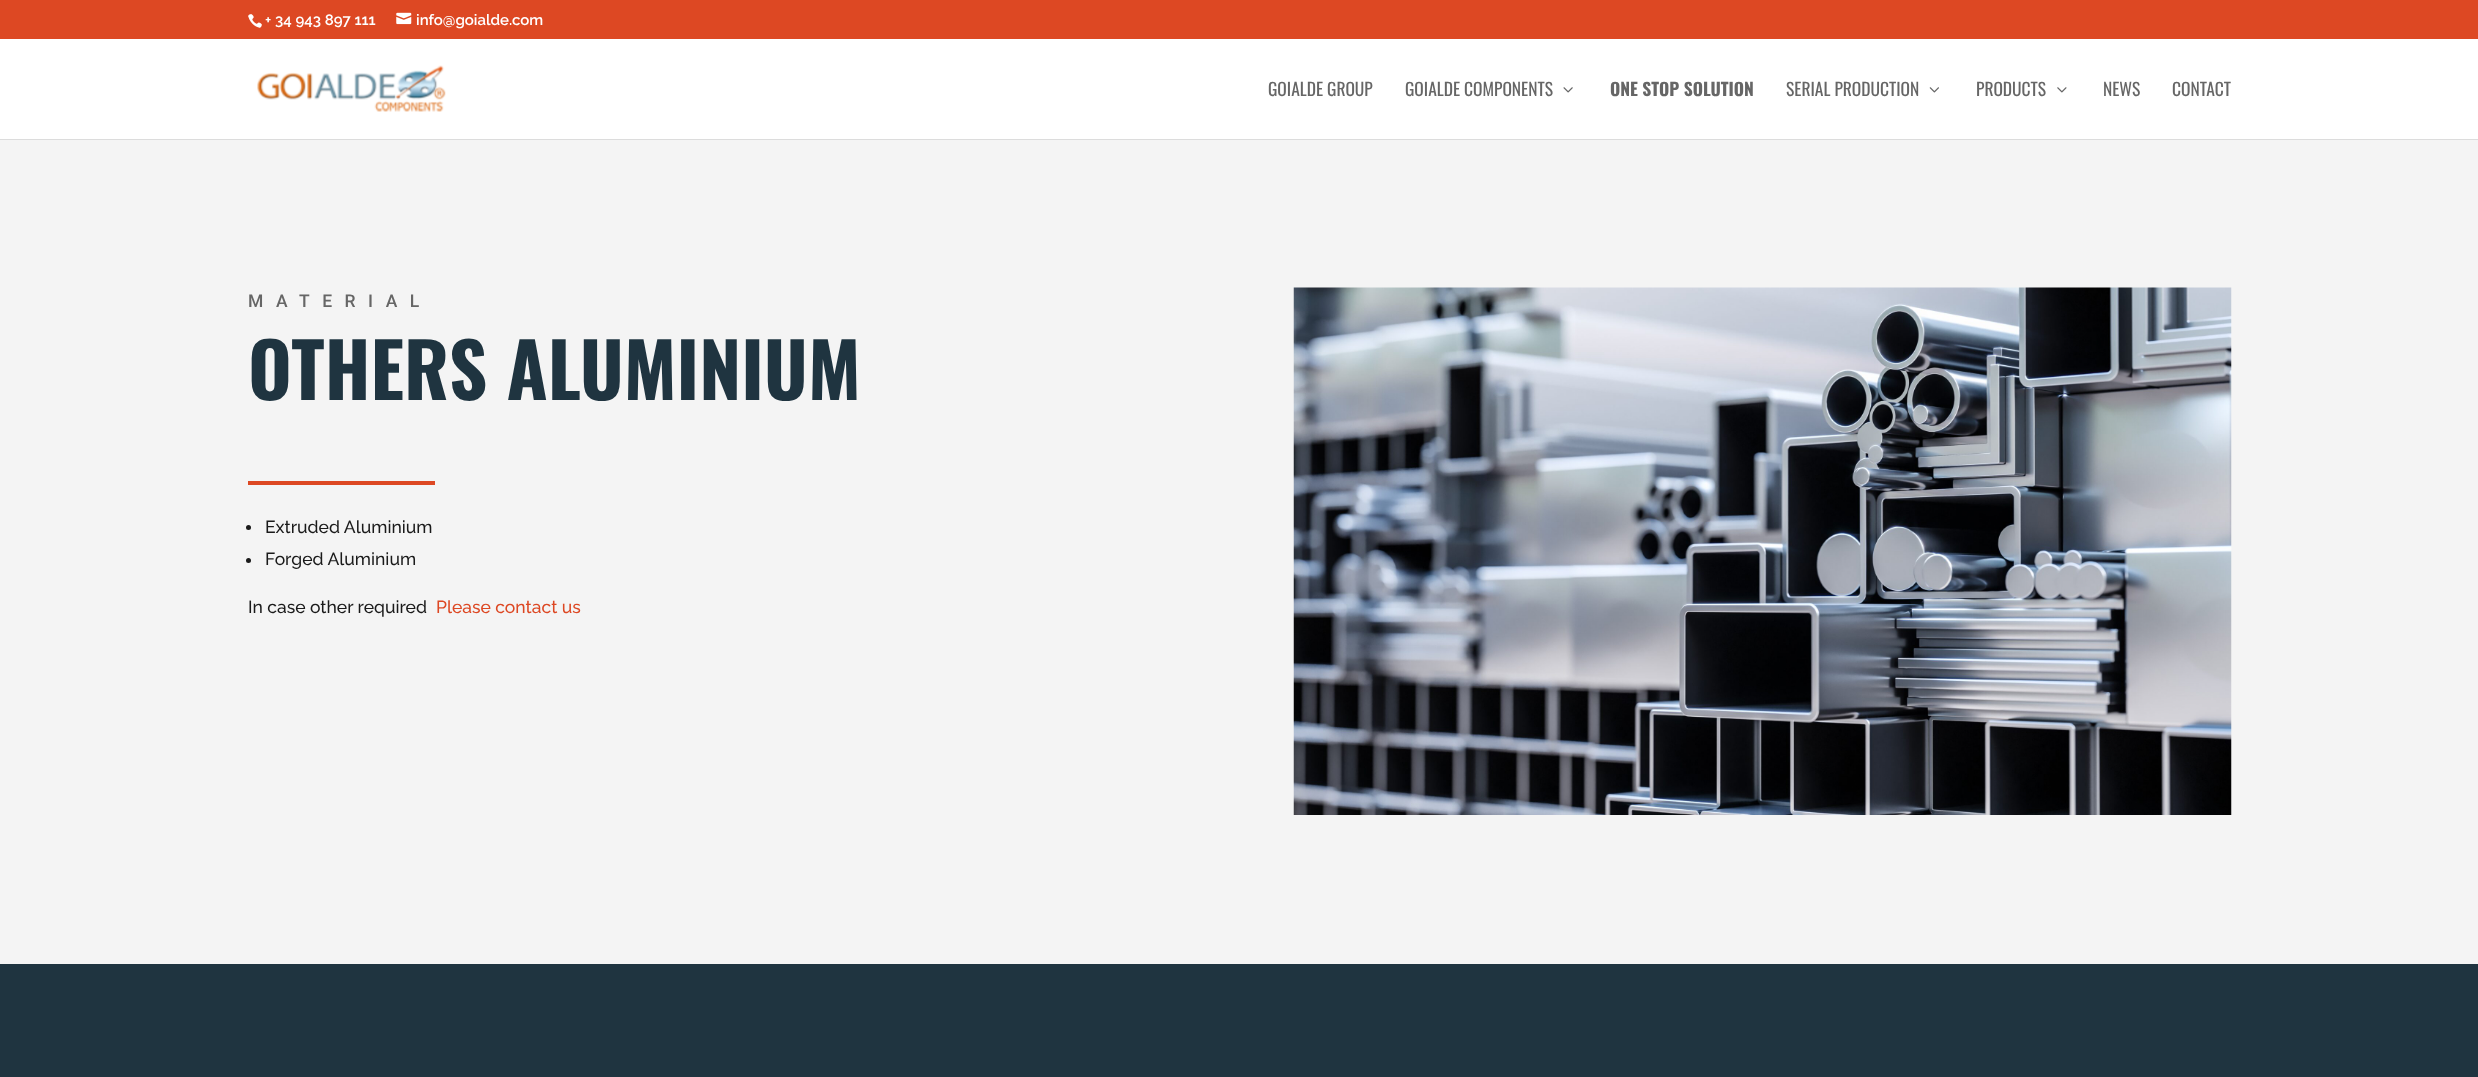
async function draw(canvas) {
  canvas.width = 2478
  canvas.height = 1077
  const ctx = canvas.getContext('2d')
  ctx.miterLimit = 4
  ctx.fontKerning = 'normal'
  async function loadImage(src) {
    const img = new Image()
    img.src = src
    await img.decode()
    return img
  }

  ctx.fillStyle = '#1f3440'
  ctx.fillRect(0, 0, 2478, 1077)
  ctx.fillStyle = '#dd4823'
  ctx.fillRect(0, 0, 2478, 39)
  ctx.drawImage(await loadImage('image0.png'), 248, 14, 14, 14)
  ctx.font = '100 15px "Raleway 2"'
  ctx.fillStyle = '#fff'
  ctx.fillText('+ 34 943 897 111', 265, 25)
  ctx.drawImage(await loadImage('image1.png'), 396, 12, 16, 13)
  ctx.fillText('info@goialde.com', 416, 25)
  ctx.fillStyle = '#dcdcdc'
  ctx.beginPath()
  ctx.moveTo(0, 139)
  ctx.lineTo(0, 140)
  ctx.lineTo(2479, 140)
  ctx.lineTo(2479, 40)
  ctx.lineTo(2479, 139)
  ctx.closePath()
  ctx.fill()
  ctx.fillStyle = '#fff'
  ctx.fillRect(0, 39, 2478, 100)
  ctx.drawImage(await loadImage('image2.png'), 257, 65, 189, 47)
  ctx.font = '17.5px Oswald'
  ctx.fillStyle = '#666'
  ctx.fillText('GOIALDE GROUP', 1268, 96)
  ctx.fillText('GOIALDE COMPONENTS', 1405, 96)
  ctx.drawImage(await loadImage('image3.png'), 1563, 87, 10, 6)
  ctx.font = 'bold 17.5px Oswald'
  ctx.fillText('ONE STOP SOLUTION', 1610, 96)
  ctx.font = '17.5px Oswald'
  ctx.fillText('SERIAL PRODUCTION', 1786, 96)
  ctx.drawImage(await loadImage('image4.png'), 1929, 87, 10, 6)
  ctx.fillText('PRODUCTS', 1976, 96)
  ctx.drawImage(await loadImage('image5.png'), 2057, 87, 10, 6)
  ctx.fillText('NEWS', 2103, 96)
  ctx.fillText('CONTACT', 2172, 96)
  ctx.fillStyle = '#f4f4f4'
  ctx.fillRect(0, 140, 2478, 824)
  ctx.letterSpacing = '12.5px'
  ctx.font = '500 17.5px Roboto'
  ctx.fillStyle = '#666'
  ctx.fillText('MATERIAL', 248, 307)
  ctx.letterSpacing = '0px'
  ctx.font = 'bold 75px Oswald'
  ctx.fillStyle = '#1f3440'
  ctx.fillText('OTHERS ALUMINIUM', 248, 400)
  ctx.fillStyle = '#dd4823'
  ctx.fillRect(248, 481, 187, 4)
  ctx.fillStyle = '#1a1a1a'
  ctx.beginPath()
  ctx.arc(248.5, 527.5, 2.5, 0, 2 * Math.PI)
  ctx.fill()
  ctx.font = '100 17.5px Raleway'
  ctx.fillText('Extruded Aluminium', 265, 533)
  ctx.beginPath()
  ctx.arc(248.5, 560.5, 2.5, 0, 2 * Math.PI)
  ctx.fill()
  ctx.fillText('Forged Aluminium', 265, 565)
  ctx.fillText('In case other required', 248, 613)
  ctx.fillStyle = '#dd4823'
  ctx.fillText('Please contact us', 436, 613)
  ctx.drawImage(await loadImage('image6.png'), 1293, 287, 939, 528)
}

draw(document.querySelector('canvas'))
